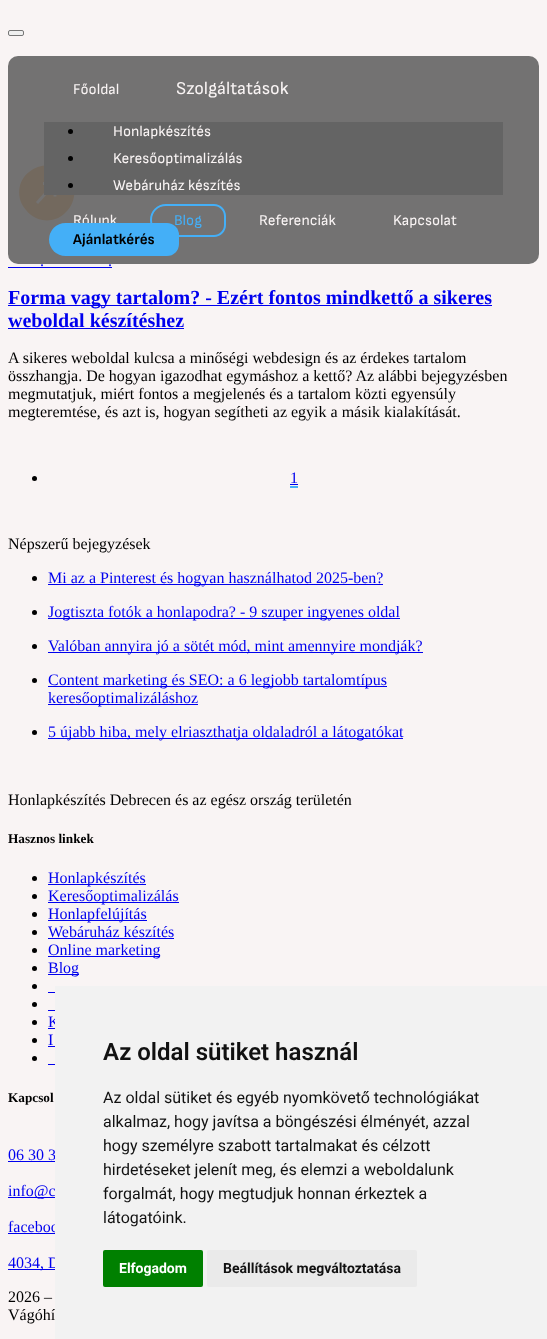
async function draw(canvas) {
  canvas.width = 547
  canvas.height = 1339
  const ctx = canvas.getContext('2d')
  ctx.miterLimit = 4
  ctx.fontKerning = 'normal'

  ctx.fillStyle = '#f9f4f4'
  ctx.fillRect(0, 0, 547, 1339)
  ctx.fillStyle = '#efefef'
  ctx.beginPath()
  ctx.roundRect(8.5, 30.5, 15, 5, 1.5)
  ctx.fill()
  ctx.strokeStyle = '#767676'
  ctx.stroke()
  ctx.fillStyle = '#ff9a2f'
  ctx.beginPath()
  ctx.moveTo(26, 210)
  ctx.bezierCurveTo(16, 199, 17, 181, 29, 172)
  ctx.bezierCurveTo(41, 162, 58, 163, 68, 175)
  ctx.bezierCurveTo(78, 187, 76, 204, 64, 214)
  ctx.bezierCurveTo(53, 224, 35, 222, 26, 210)
  ctx.closePath()
  ctx.fill()
  ctx.beginPath()
  ctx.moveTo(37, 203)
  ctx.lineTo(53.5, 184.5)
  ctx.strokeStyle = '#f9f4f4'
  ctx.lineWidth = 2.8
  ctx.stroke()
  ctx.fillStyle = '#f9f4f4ed'
  ctx.fillRect(43, 182, 1, 3)
  ctx.beginPath()
  ctx.moveTo(55, 196.5)
  ctx.lineTo(55, 182.5)
  ctx.stroke()
  ctx.fillStyle = '#646464e6'
  ctx.beginPath()
  ctx.roundRect(8, 56, 531, 208, 10)
  ctx.fill()
  ctx.font = '15px Sofia Sans'
  ctx.fillStyle = '#f9f4f4'
  ctx.fillText('Főoldal', 73, 94)
  ctx.font = '18px Sofia Sans'
  ctx.fillText('Szolgáltatások', 176, 94)
  ctx.fillStyle = '#646464'
  ctx.fillRect(44, 122, 459, 73)
  ctx.fillStyle = '#000'
  ctx.beginPath()
  ctx.arc(70.5, 131.5, 2.5, 0, 2 * Math.PI)
  ctx.fill()
  ctx.font = '15px Sofia Sans'
  ctx.fillStyle = '#f9f4f4'
  ctx.fillText('Honlapkészítés', 113, 136)
  ctx.fillStyle = '#000'
  ctx.beginPath()
  ctx.arc(70.5, 158.5, 2.5, 0, 2 * Math.PI)
  ctx.fill()
  ctx.fillStyle = '#f9f4f4'
  ctx.fillText('Keresőoptimalizálás', 113, 163)
  ctx.fillStyle = '#000'
  ctx.beginPath()
  ctx.arc(70.5, 185.5, 2.5, 0, 2 * Math.PI)
  ctx.fill()
  ctx.fillStyle = '#f9f4f4'
  ctx.fillText('Webáruház készítés', 113, 190)
  ctx.fillText('Rólunk', 73, 225)
  ctx.fillStyle = '#44aff7'
  ctx.beginPath()
  ctx.moveTo(166, 204)
  ctx.lineTo(202, 204)
  ctx.lineTo(202, 237)
  ctx.lineTo(166, 237)
  ctx.bezierCurveTo(157, 237, 150, 230, 150, 220)
  ctx.bezierCurveTo(150, 211, 157, 204, 166, 204)
  ctx.closePath()
  ctx.moveTo(166, 206)
  ctx.lineTo(202, 206)
  ctx.lineTo(202, 235)
  ctx.lineTo(166, 235)
  ctx.bezierCurveTo(158, 235, 152, 229, 152, 220)
  ctx.bezierCurveTo(152, 212, 158, 206, 166, 206)
  ctx.closePath()
  ctx.fill('evenodd')
  ctx.fillText('Blog', 174, 225)
  ctx.beginPath()
  ctx.moveTo(202, 204)
  ctx.lineTo(214, 204)
  ctx.bezierCurveTo(220.5, 204, 226, 209.5, 226, 216)
  ctx.lineTo(226, 225)
  ctx.bezierCurveTo(226, 231.5, 220.5, 237, 214, 237)
  ctx.lineTo(202, 237)
  ctx.closePath()
  ctx.moveTo(202, 206)
  ctx.lineTo(214, 206)
  ctx.bezierCurveTo(219.5, 206, 224, 210.5, 224, 216)
  ctx.lineTo(224, 225)
  ctx.bezierCurveTo(224, 230.5, 219.5, 235, 214, 235)
  ctx.lineTo(202, 235)
  ctx.closePath()
  ctx.fill('evenodd')
  ctx.fillStyle = '#f9f4f4'
  ctx.fillText('Referenciák', 259, 225)
  ctx.fillText('Kapcsolat', 393, 225)
  ctx.fillStyle = '#44aff7'
  ctx.beginPath()
  ctx.roundRect(49, 223, 106, 33, [16.5, 0, 0, 16.5])
  ctx.fill()
  ctx.font = 'bold 15px Sofia Sans'
  ctx.fillStyle = '#000'
  ctx.fillText('Ajánlatkérés', 73, 244)
  ctx.fillStyle = '#44aff7'
  ctx.beginPath()
  ctx.roundRect(155, 223, 24, 33, [0, 12, 12, 0])
  ctx.fill()
  ctx.font = '16px Liberation Serif'
  ctx.fillStyle = '#00e'
  ctx.fillText('.', 40, 266)
  ctx.fillRect(8, 267, 104, 1)
  ctx.fillText('.', 108, 266)
  ctx.fillRect(8, 305, 484, 1)
  ctx.font = 'bold 20px Liberation Serif'
  ctx.fillText('Forma vagy tartalom? - Ezért fontos mindkettő a sikeres', 8, 304)
  ctx.fillText('weboldal készítéshez', 8, 327)
  ctx.fillRect(8, 328, 176, 1)
  ctx.font = '16px Liberation Serif'
  ctx.fillStyle = '#000'
  ctx.fillText('A sikeres weboldal kulcsa a minőségi webdesign és az érdekes tartalom', 8, 363)
  ctx.fillText('összhangja. De hogyan igazodhat egymáshoz a kettő? Az alábbi bejegyzésben', 8, 381)
  ctx.fillText('megmutatjuk, miért fontos a megjelenés és a tartalom közti egyensúly', 8, 399)
  ctx.fillText('megteremtése, és azt is, hogyan segítheti az egyik a másik kialakítását.', 8, 417)
  ctx.beginPath()
  ctx.arc(34.5, 478.5, 2.5, 0, 2 * Math.PI)
  ctx.fill()
  ctx.fillStyle = '#00e'
  ctx.fillText('1', 290, 483)
  ctx.fillStyle = '#44aff7'
  ctx.fillRect(290, 486, 8, 2)
  ctx.fillStyle = '#00e'
  ctx.fillRect(290, 484, 8, 1)
  ctx.fillStyle = '#000'
  ctx.fillText('Népszerű bejegyzések', 8, 549)
  ctx.beginPath()
  ctx.arc(34.5, 578.5, 2.5, 0, 2 * Math.PI)
  ctx.fill()
  ctx.fillStyle = '#00e'
  ctx.fillRect(48, 584, 335, 1)
  ctx.fillText('Mi az a Pinterest és hogyan használhatod 2025-ben?', 48, 583)
  ctx.fillStyle = '#000'
  ctx.beginPath()
  ctx.arc(34.5, 612.5, 2.5, 0, 2 * Math.PI)
  ctx.fill()
  ctx.fillStyle = '#00e'
  ctx.fillRect(48, 618, 352, 1)
  ctx.fillText('Jogtiszta fotók a honlapodra? - 9 szuper ingyenes oldal', 48, 617)
  ctx.fillStyle = '#000'
  ctx.beginPath()
  ctx.arc(34.5, 646.5, 2.5, 0, 2 * Math.PI)
  ctx.fill()
  ctx.fillStyle = '#00e'
  ctx.fillRect(48, 652, 375, 1)
  ctx.fillText('Valóban annyira jó a sötét mód, mint amennyire mondják?', 48, 651)
  ctx.fillStyle = '#000'
  ctx.beginPath()
  ctx.arc(34.5, 680.5, 2.5, 0, 2 * Math.PI)
  ctx.fill()
  ctx.fillStyle = '#00e'
  ctx.fillRect(48, 686, 339, 1)
  ctx.fillText('Content marketing és SEO: a 6 legjobb tartalomtípus', 48, 685)
  ctx.fillRect(48, 704, 150, 1)
  ctx.fillText('keresőoptimalizáláshoz', 48, 703)
  ctx.fillStyle = '#000'
  ctx.beginPath()
  ctx.arc(34.5, 732.5, 2.5, 0, 2 * Math.PI)
  ctx.fill()
  ctx.fillStyle = '#00e'
  ctx.fillRect(48, 738, 355, 1)
  ctx.fillText('5 újabb hiba, mely elriaszthatja oldaladról a látogatókat', 48, 737)
  ctx.fillStyle = '#000'
  ctx.fillText('Honlapkészítés Debrecen és az egész ország területén', 8, 805)
  ctx.font = 'bold 13.25px Liberation Serif'
  ctx.fillText('Hasznos linkek', 8, 843)
  ctx.beginPath()
  ctx.arc(34.5, 878.5, 2.5, 0, 2 * Math.PI)
  ctx.fill()
  ctx.fillStyle = '#00e'
  ctx.fillRect(48, 884, 98, 1)
  ctx.font = '16px Liberation Serif'
  ctx.fillText('Honlapkészítés', 48, 883)
  ctx.fillStyle = '#000'
  ctx.beginPath()
  ctx.arc(34.5, 896.5, 2.5, 0, 2 * Math.PI)
  ctx.fill()
  ctx.fillStyle = '#00e'
  ctx.fillRect(48, 902, 131, 1)
  ctx.fillText('Keresőoptimalizálás', 48, 901)
  ctx.fillStyle = '#000'
  ctx.beginPath()
  ctx.arc(34.5, 914.5, 2.5, 0, 2 * Math.PI)
  ctx.fill()
  ctx.fillStyle = '#00e'
  ctx.fillRect(48, 920, 99, 1)
  ctx.fillText('Honlapfelújítás', 48, 919)
  ctx.fillStyle = '#000'
  ctx.beginPath()
  ctx.arc(34.5, 932.5, 2.5, 0, 2 * Math.PI)
  ctx.fill()
  ctx.fillStyle = '#00e'
  ctx.fillText('Webáruház készítés', 48, 937)
  ctx.fillRect(48, 938, 126, 1)
  ctx.fillStyle = '#000'
  ctx.beginPath()
  ctx.arc(34.5, 950.5, 2.5, 0, 2 * Math.PI)
  ctx.fill()
  ctx.fillStyle = '#00e'
  ctx.fillRect(48, 956, 112, 1)
  ctx.fillText('Online marketing', 48, 955)
  ctx.fillStyle = '#000'
  ctx.beginPath()
  ctx.arc(34.5, 968.5, 2.5, 0, 2 * Math.PI)
  ctx.fill()
  ctx.fillStyle = '#00e'
  ctx.fillRect(48, 974, 31, 1)
  ctx.fillText('Blog', 48, 973)
  ctx.fillStyle = '#000'
  ctx.beginPath()
  ctx.arc(34.5, 986.5, 2.5, 0, 2 * Math.PI)
  ctx.fill()
  ctx.fillStyle = '#00e'
  ctx.fillRect(48, 992, 7, 1)
  ctx.fillStyle = '#000'
  ctx.beginPath()
  ctx.arc(34.5, 1004.5, 2.5, 0, 2 * Math.PI)
  ctx.fill()
  ctx.fillStyle = '#00e'
  ctx.fillRect(48, 1010, 7, 1)
  ctx.fillStyle = '#000'
  ctx.beginPath()
  ctx.arc(34.5, 1022.5, 2.5, 0, 2 * Math.PI)
  ctx.fill()
  ctx.fillStyle = '#00e'
  ctx.fillText('K', 48, 1027)
  ctx.fillRect(48, 1028, 7, 1)
  ctx.fillStyle = '#000'
  ctx.beginPath()
  ctx.arc(34.5, 1040.5, 2.5, 0, 2 * Math.PI)
  ctx.fill()
  ctx.fillStyle = '#00e'
  ctx.fillText('I', 48, 1045)
  ctx.fillRect(48, 1046, 7, 1)
  ctx.fillStyle = '#000'
  ctx.beginPath()
  ctx.arc(34.5, 1058.5, 2.5, 0, 2 * Math.PI)
  ctx.fill()
  ctx.fillStyle = '#00e'
  ctx.fillRect(48, 1064, 7, 1)
  ctx.font = 'bold 13.25px Liberation Serif'
  ctx.fillStyle = '#000'
  ctx.fillText('Kapcsol', 8, 1102)
  ctx.font = '16px Liberation Serif'
  ctx.fillStyle = '#00e'
  ctx.fillText('06 30 3', 8, 1160)
  ctx.fillRect(8, 1161, 47, 1)
  ctx.fillRect(8, 1197, 47, 1)
  ctx.fillText('info@c', 8, 1196)
  ctx.fillText('faceboo', 8, 1232)
  ctx.fillRect(8, 1233, 47, 1)
  ctx.fillRect(8, 1269, 47, 1)
  ctx.fillText('4034, D', 8, 1268)
  ctx.fillStyle = '#000'
  ctx.fillText('2026 –', 8, 1302)
  ctx.fillText('Vágóhí', 8, 1320)
  ctx.fillStyle = '#f2f2f2'
  ctx.fillRect(55, 986, 492, 353)
  ctx.font = '600 24px Roboto'
  ctx.fillStyle = '#111'
  ctx.fillText('Az oldal sütiket használ', 103, 1060)
  ctx.font = '16px Roboto'
  ctx.fillText('Az oldal sütiket és egyéb nyomkövető technológiákat', 103, 1103)
  ctx.fillText('alkalmaz, hogy javítsa a böngészési élményét, azzal', 103, 1127)
  ctx.fillText('hogy személyre szabott tartalmakat és célzott', 103, 1151)
  ctx.fillText('hirdetéseket jelenít meg, és elemzi a weboldalunk', 103, 1175)
  ctx.fillText('forgalmát, hogy megtudjuk honnan érkeztek a', 103, 1199)
  ctx.fillText('látogatóink.', 103, 1223)
  ctx.fillStyle = '#008000'
  ctx.beginPath()
  ctx.roundRect(103, 1250, 100, 37, 2)
  ctx.fill()
  ctx.font = 'bold 14px Roboto'
  ctx.fillStyle = '#fff'
  ctx.fillText('Elfogadom', 119, 1273)
  ctx.fillStyle = '#eaeaea'
  ctx.beginPath()
  ctx.roundRect(207, 1250, 210, 37, 2)
  ctx.fill()
  ctx.fillStyle = '#111'
  ctx.fillText('Beállítások megváltoztatása', 223, 1273)
}

draw(document.querySelector('canvas'))
